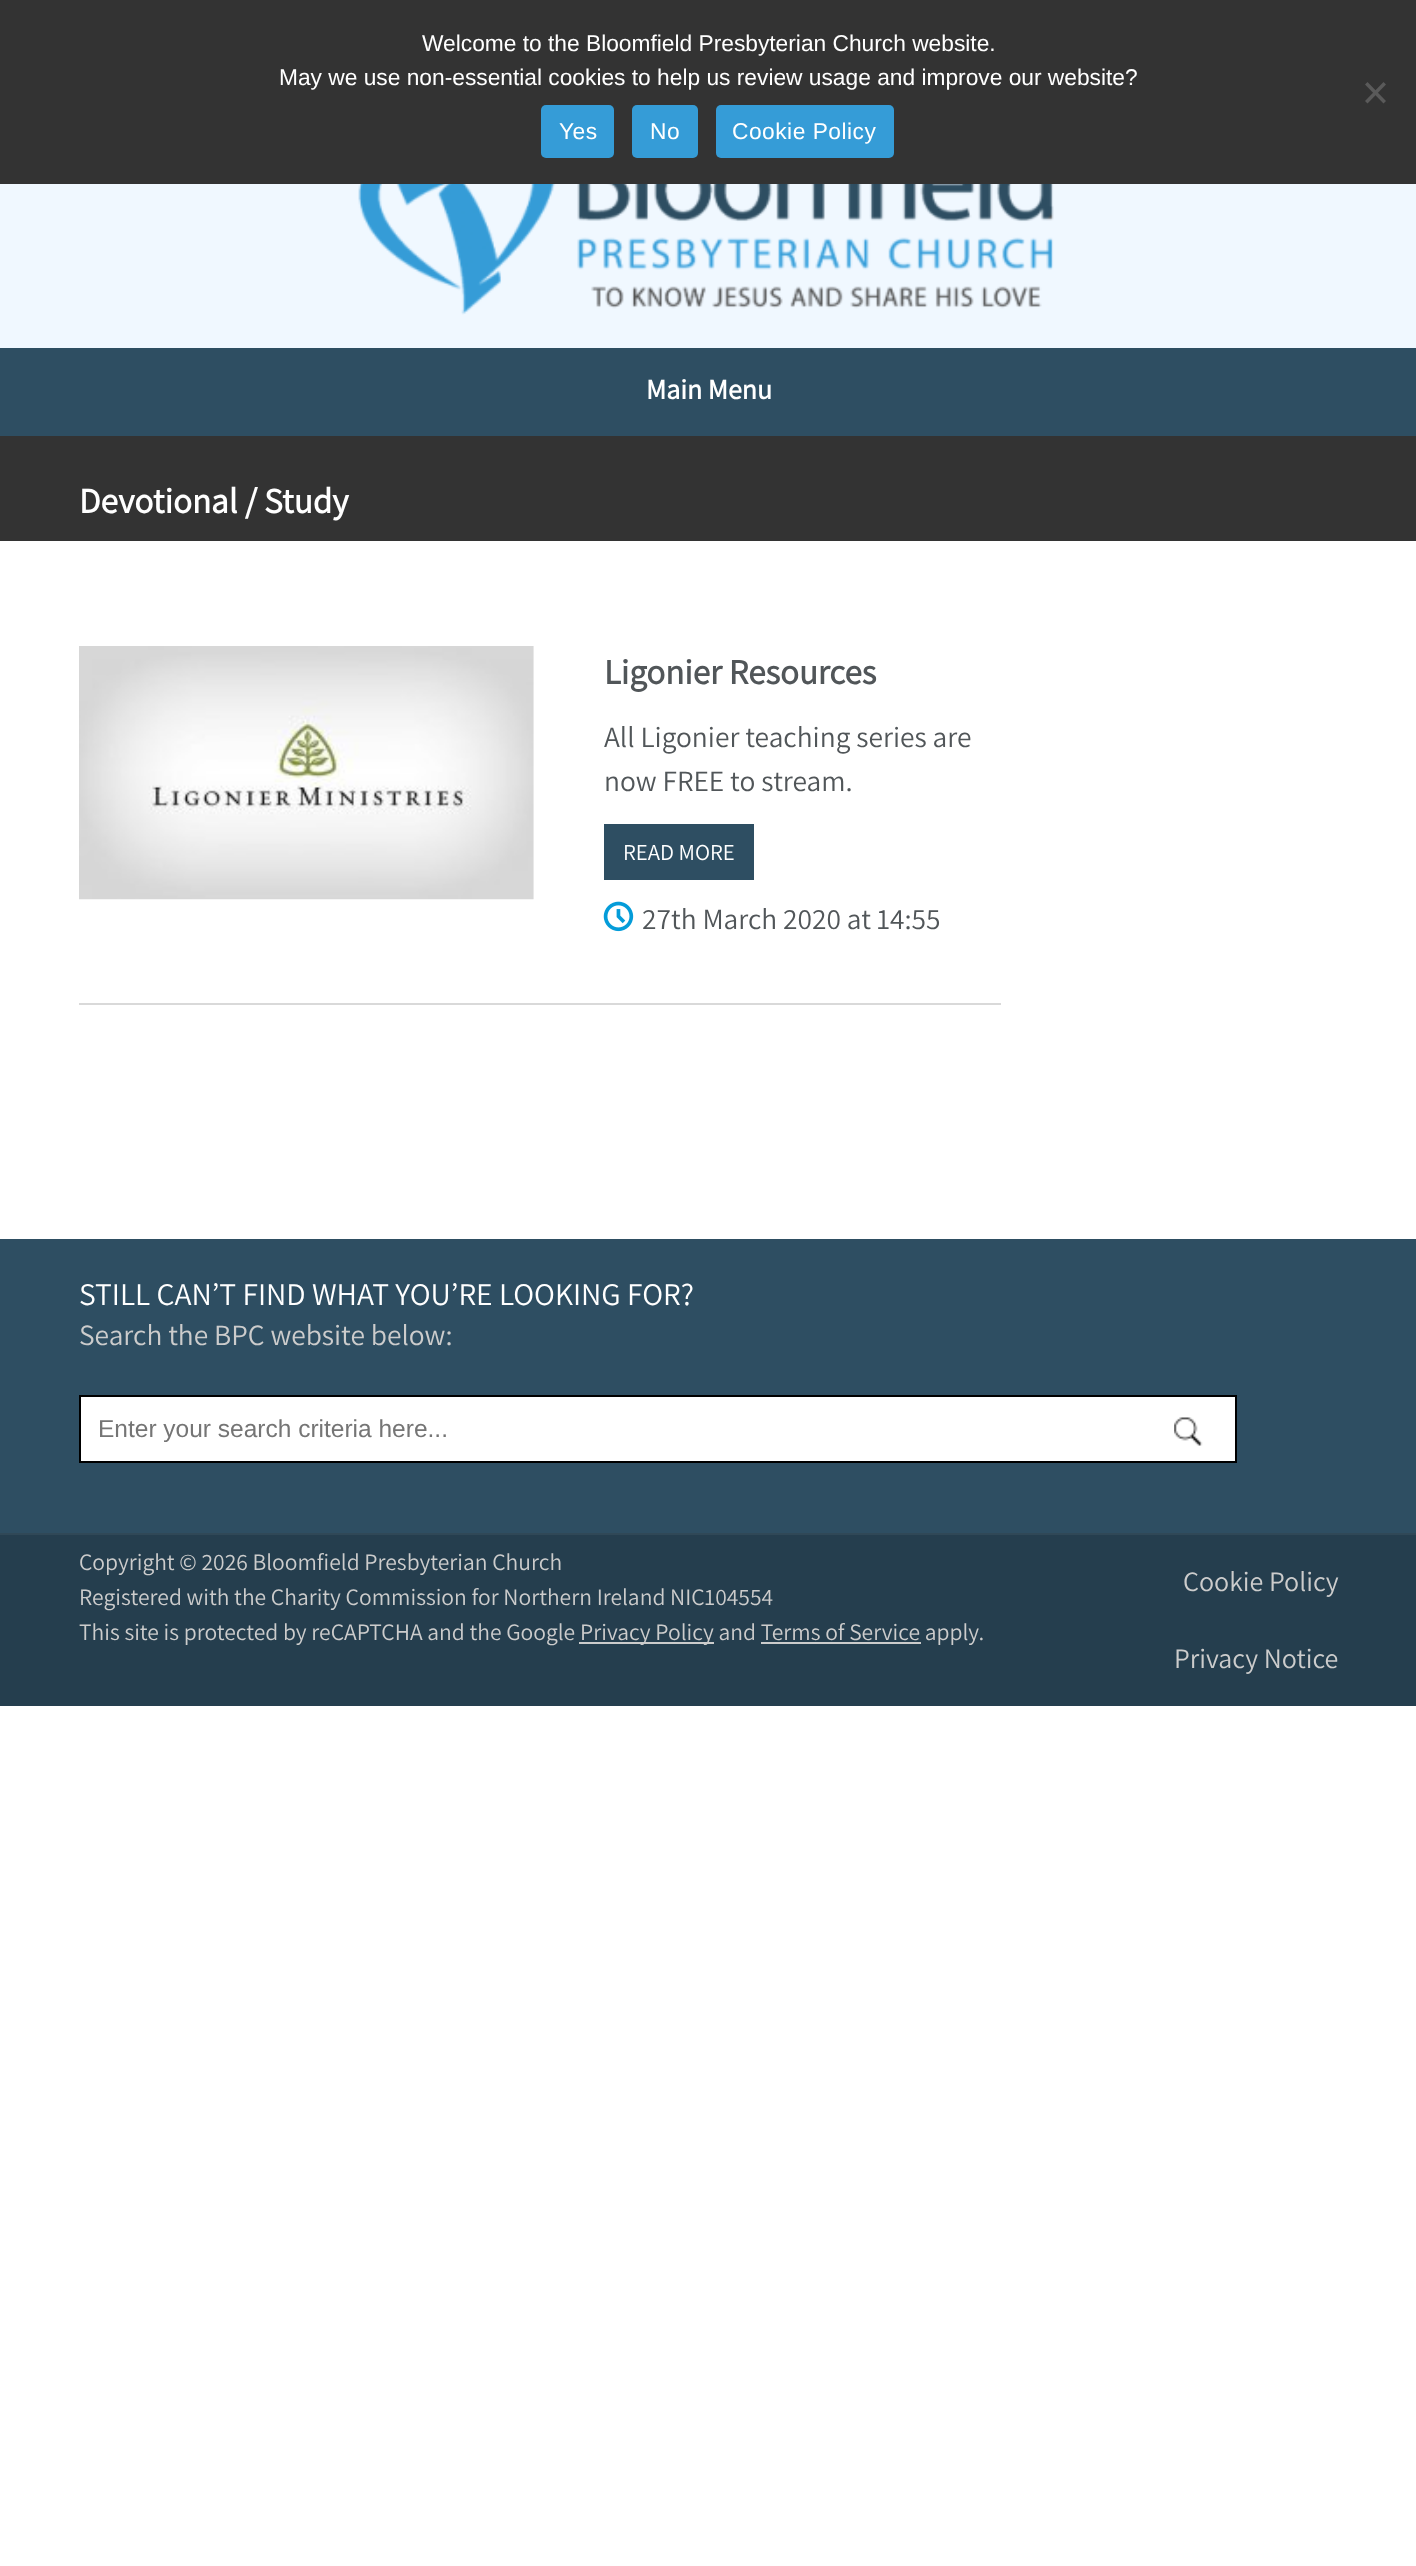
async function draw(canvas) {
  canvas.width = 1416
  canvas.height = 2566
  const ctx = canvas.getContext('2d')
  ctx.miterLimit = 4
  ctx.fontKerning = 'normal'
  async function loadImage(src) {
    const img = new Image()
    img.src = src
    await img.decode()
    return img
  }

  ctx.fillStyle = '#fff'
  ctx.fillRect(0, 0, 1416, 2566)
  ctx.fillStyle = '#333'
  ctx.fillRect(0, 0, 1416, 184)
  ctx.font = '22.75px Liberation Sans'
  ctx.fillStyle = '#fff'
  ctx.fillText('Welcome to the Bloomfield Presbyterian Church website.', 422, 51)
  ctx.fillText('May we use non-essential cookies to help us review usage and improve our website?', 279, 85)
  ctx.fillStyle = '#5a5a5a'
  ctx.beginPath()
  ctx.moveTo(1383.5, 82)
  ctx.lineTo(1386, 84.5)
  ctx.lineTo(1367.5, 103.5)
  ctx.lineTo(1365, 101)
  ctx.closePath()
  ctx.fill()
  ctx.beginPath()
  ctx.moveTo(1365, 84.5)
  ctx.lineTo(1367.5, 82)
  ctx.lineTo(1386, 101)
  ctx.lineTo(1383.5, 103.5)
  ctx.closePath()
  ctx.fill()
  ctx.fillStyle = '#359cd7'
  ctx.beginPath()
  ctx.roundRect(541, 105, 73, 53, 5)
  ctx.fill()
  ctx.letterSpacing = '0.5px'
  ctx.fillStyle = '#fff'
  ctx.fillText('Yes', 559, 139)
  ctx.fillStyle = '#359cd7'
  ctx.beginPath()
  ctx.roundRect(632, 105, 66, 53, 5)
  ctx.fill()
  ctx.fillStyle = '#fff'
  ctx.fillText('No', 650, 139)
  ctx.fillStyle = '#359cd7'
  ctx.beginPath()
  ctx.roundRect(716, 105, 178, 53, 5)
  ctx.fill()
  ctx.fillStyle = '#fff'
  ctx.fillText('Cookie Policy', 732, 139)
  ctx.fillStyle = '#f0f8ff'
  ctx.fillRect(0, 184, 1416, 164)
  ctx.drawImage(await loadImage('image0.png'), 358, 184, 696, 131)
  ctx.fillStyle = '#2e4e62'
  ctx.fillRect(0, 348, 1416, 88)
  ctx.letterSpacing = '0px'
  ctx.font = 'bold 28px Assistant'
  ctx.fillStyle = '#fff'
  ctx.fillText('Main Menu', 646, 399)
  ctx.fillStyle = '#333'
  ctx.fillRect(0, 436, 1416, 105)
  ctx.font = 'bold 35.25px Assistant'
  ctx.fillStyle = '#fff'
  ctx.fillText('Devotional / Study', 79, 513)
  ctx.fillStyle = '#d9d9d9'
  ctx.fillRect(79, 1003, 922, 2)
  ctx.drawImage(await loadImage('image1.png'), 79, 646, 455, 254)
  ctx.font = 'bold 35px Assistant'
  ctx.fillStyle = '#515659'
  ctx.fillText('Ligonier Resources', 604, 684)
  ctx.font = '200 29.4px Assistant'
  ctx.fillText('All Ligonier teaching series are', 604, 747)
  ctx.fillText('now FREE to stream.', 604, 791)
  ctx.fillStyle = '#2e4e62'
  ctx.fillRect(604, 824, 150, 56)
  ctx.font = '200 22.75px Assistant'
  ctx.fillStyle = '#fff'
  ctx.fillText('READ MORE', 623, 860)
  ctx.drawImage(await loadImage('image2.png'), 603, 901, 31, 31)
  ctx.font = '200 29.4px Assistant'
  ctx.fillStyle = '#515659'
  ctx.fillText('27th March 2020 at 14:55', 642, 929)
  ctx.fillStyle = '#2e4e62'
  ctx.fillRect(0, 1239, 1416, 294)
  ctx.font = '200 31.5px Assistant'
  ctx.fillStyle = '#fff'
  ctx.fillText('STILL CAN’T FIND WHAT YOU’RE LOOKING FOR?', 79, 1305)
  ctx.font = '200 29.4px Assistant'
  ctx.fillStyle = '#ccc'
  ctx.fillText('Search the BPC website below:', 79, 1345)
  ctx.fillStyle = '#fff'
  ctx.fillRect(81, 1397, 1154, 64)
  ctx.drawImage(await loadImage('image3.png'), 1174, 1417, 29, 29)
  ctx.strokeStyle = '#000'
  ctx.lineWidth = 2
  ctx.strokeRect(80, 1396, 1156, 66)
  ctx.font = '24.5px Liberation Sans'
  ctx.fillStyle = '#757575'
  ctx.fillText('Enter your search criteria here...', 98, 1437)
  ctx.fillStyle = '#253e4e'
  ctx.fillRect(0, 1535, 1416, 171)
  ctx.fillStyle = '#304857'
  ctx.fillRect(0, 1533, 1416, 2)
  ctx.font = '200 23.5px Assistant'
  ctx.fillStyle = '#ccc'
  ctx.fillText('Copyright © 2026 Bloomfield Presbyterian Church', 79, 1570)
  ctx.fillText('Registered with the Charity Commission for Northern Ireland NIC104554', 79, 1605)
  ctx.fillText('This site is protected by reCAPTCHA and the Google', 79, 1640)
  ctx.fillRect(579, 1642, 135, 2)
  ctx.fillText('Privacy Policy and Terms of Service apply.', 580, 1640)
  ctx.fillRect(761, 1642, 160, 2)
  ctx.font = '200 28px Assistant'
  ctx.fillText('Cookie Policy', 1183, 1591)
  ctx.fillText('Privacy Notice', 1174, 1668)
}

draw(document.querySelector('canvas'))
